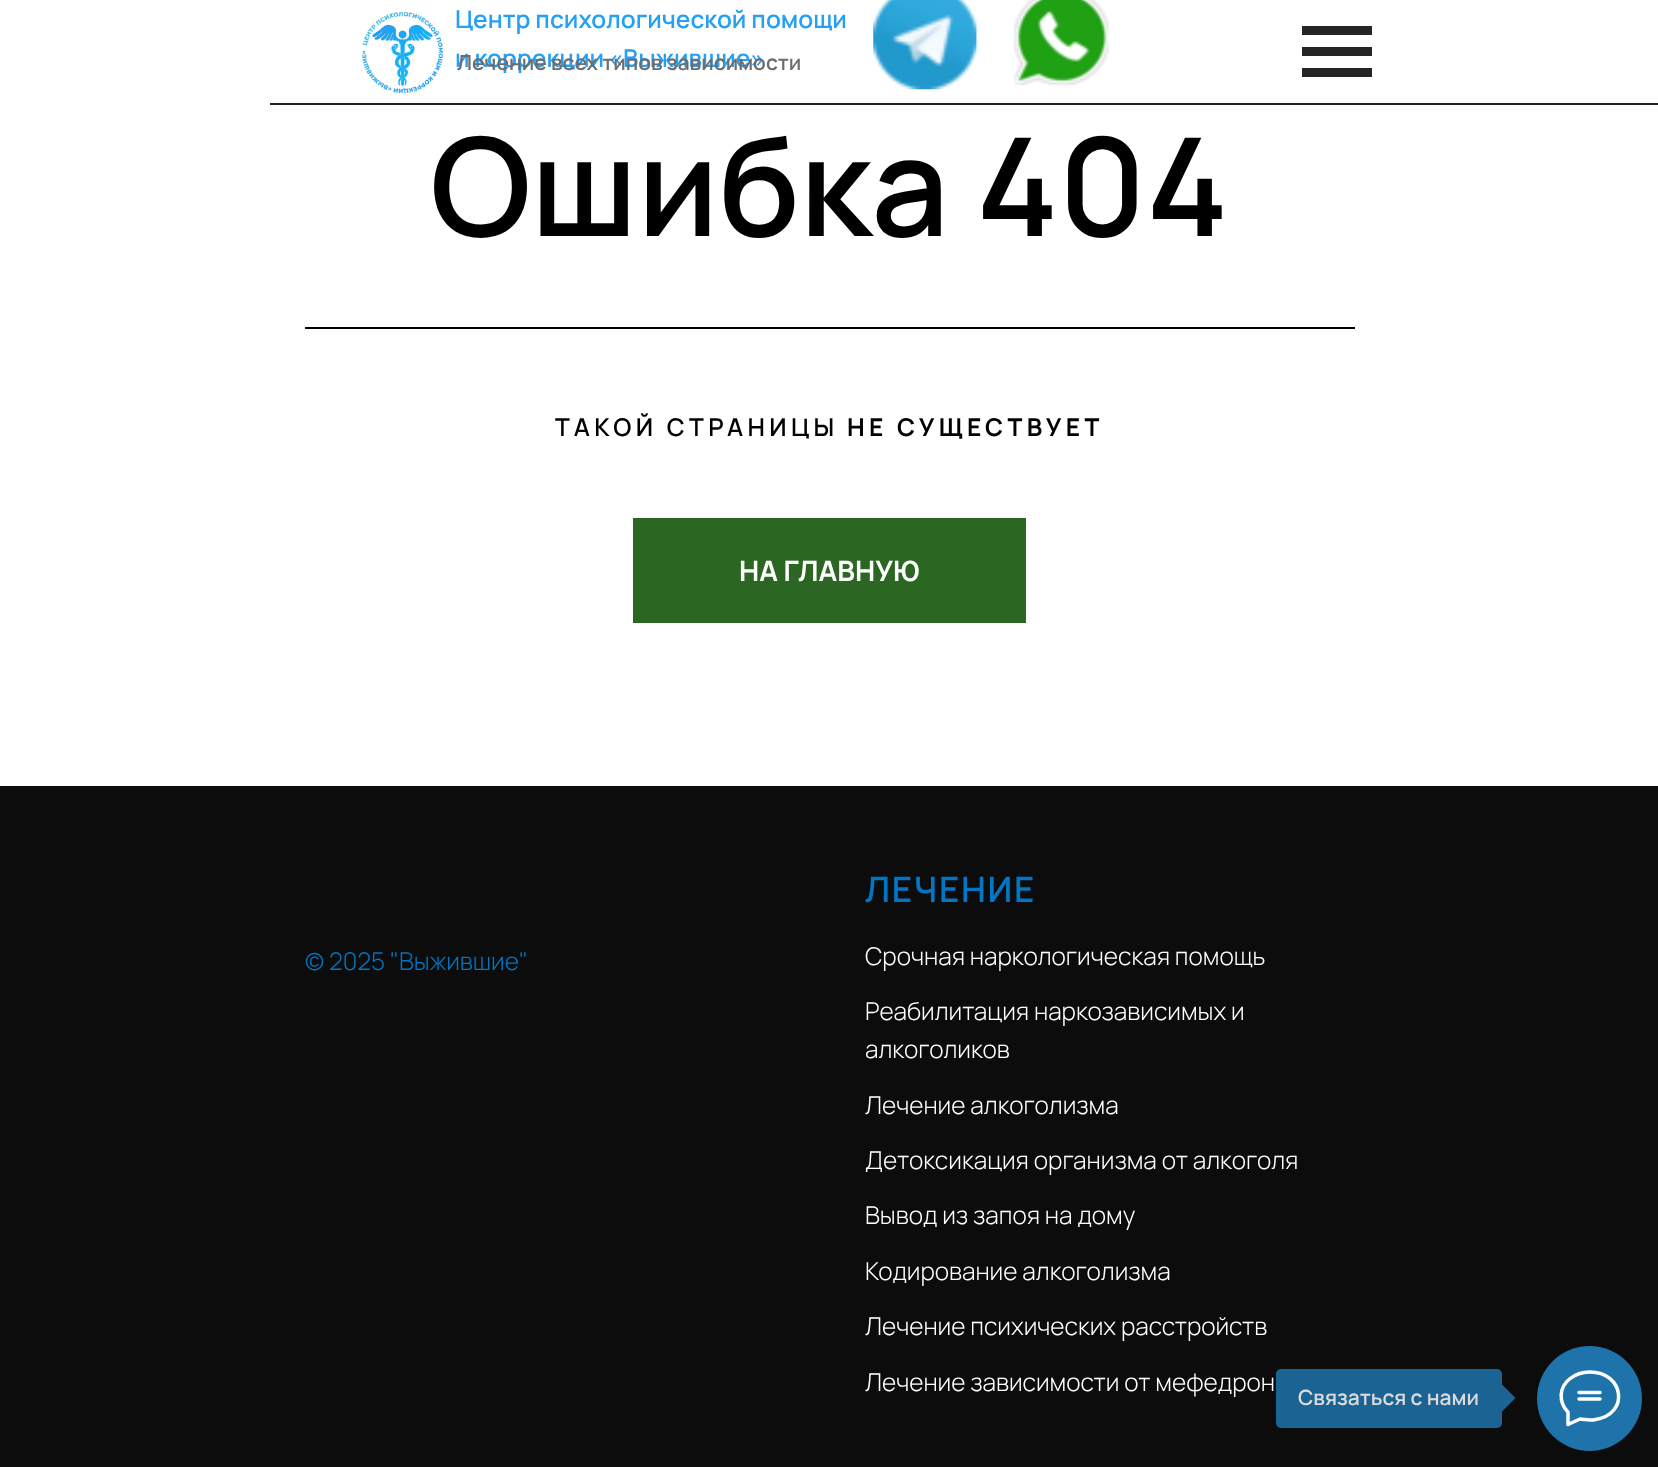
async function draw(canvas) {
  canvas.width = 1658
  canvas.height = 1467
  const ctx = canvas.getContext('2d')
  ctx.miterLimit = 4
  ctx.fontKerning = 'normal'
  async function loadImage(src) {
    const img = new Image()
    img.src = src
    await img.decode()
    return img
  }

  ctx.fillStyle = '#fff'
  ctx.fillRect(0, 0, 1658, 1467)
  ctx.drawImage(await loadImage('image0.png'), 362, 12, 82, 82)
  ctx.font = '600 24.5px Manrope'
  ctx.fillStyle = '#25a0f4'
  ctx.fillText('Центр психологической помощи', 455, 28)
  ctx.fillText('и коррекции «Выжившие»', 455, 67)
  ctx.drawImage(await loadImage('image1.png'), 873, 0, 105, 90)
  ctx.drawImage(await loadImage('image2.png'), 1013, 0, 97, 86)
  ctx.fillStyle = '#252525'
  ctx.fillRect(1302, 26, 70, 9)
  ctx.fillRect(1302, 47, 70, 9)
  ctx.font = '600 21px Manrope'
  ctx.fillStyle = '#6d6d6d'
  ctx.fillText('Лечение всех типов зависимости', 457, 70)
  ctx.fillStyle = '#252525'
  ctx.fillRect(1302, 68, 70, 9)
  ctx.fillRect(270, 103, 1388, 2)
  ctx.font = '600 136.5px Manrope'
  ctx.fillStyle = '#000'
  ctx.fillText('Ошибка 404', 430, 236)
  ctx.fillRect(305, 327, 1050, 2)
  ctx.letterSpacing = '4.4px'
  ctx.font = '600 24.5px Manrope'
  ctx.fillText('ТАКОЙ СТРАНИЦЫ', 555, 436)
  ctx.font = 'bold 24.5px Manrope'
  ctx.fillText('НЕ СУЩЕСТВУЕТ', 847, 436)
  ctx.fillStyle = '#2b6623'
  ctx.fillRect(633, 518, 393, 105)
  ctx.letterSpacing = '0px'
  ctx.font = 'bold 28px Manrope'
  ctx.fillStyle = '#fff'
  ctx.fillText('НА ГЛАВНУЮ', 739, 581)
  ctx.fillStyle = '#0c0c0c'
  ctx.fillRect(0, 786, 1658, 681)
  ctx.font = '300 24.5px Manrope'
  ctx.fillStyle = '#0076c4'
  ctx.fillText('© 2025 "Выжившие"', 305, 970)
  ctx.letterSpacing = '1.75px'
  ctx.font = '600 35px Manrope'
  ctx.fillText('ЛЕЧЕНИЕ', 865, 902)
  ctx.letterSpacing = '0px'
  ctx.font = '300 24.5px Manrope'
  ctx.fillStyle = '#fff'
  ctx.fillText('Срочная наркологическая помощь', 865, 965)
  ctx.fillText('Реабилитация наркозависимых и', 865, 1020)
  ctx.fillText('алкоголиков', 865, 1058)
  ctx.fillText('Лечение алкоголизма', 865, 1114)
  ctx.fillText('Детоксикация организма от алкоголя', 865, 1169)
  ctx.fillText('Вывод из запоя на дому', 865, 1224)
  ctx.fillText('Кодирование алкоголизма', 865, 1280)
  ctx.fillText('Лечение психических расстройств', 865, 1335)
  ctx.fillText('Лечение зависимости от мефедрон', 865, 1391)
  ctx.fillStyle = '#1f73abd9'
  ctx.beginPath()
  ctx.roundRect(1276, 1369, 226, 59, 5)
  ctx.fill()
  ctx.font = '600 21px Manrope'
  ctx.fillStyle = '#dbdbdb'
  ctx.fillText('Связаться с нами', 1298, 1405)
  ctx.fillStyle = '#1c6493'
  ctx.beginPath()
  ctx.moveTo(1501.5, 1412)
  ctx.lineTo(1501.5, 1384)
  ctx.lineTo(1515.5, 1398)
  ctx.closePath()
  ctx.fill()
  ctx.fillStyle = '#1f73ab'
  ctx.beginPath()
  ctx.arc(1589.5, 1398.5, 52.5, 0, 2 * Math.PI)
  ctx.fill()
  ctx.beginPath()
  ctx.moveTo(1579, 1392.5)
  ctx.lineTo(1600, 1392.5)
  ctx.moveTo(1579, 1399)
  ctx.lineTo(1600, 1399)
  ctx.moveTo(1567.5, 1411.5)
  ctx.bezierCurveTo(1558.5, 1402, 1559, 1387.5, 1569.5, 1379)
  ctx.bezierCurveTo(1575, 1374.5, 1582.5, 1372, 1590, 1372)
  ctx.bezierCurveTo(1624, 1372, 1630, 1414, 1595.5, 1419.5)
  ctx.bezierCurveTo(1589.5, 1421, 1586, 1419.5, 1580, 1419)
  ctx.lineTo(1568, 1424.5)
  ctx.lineTo(1568, 1412)
  ctx.closePath()
  ctx.strokeStyle = '#fff'
  ctx.lineWidth = 3.5
  ctx.lineCap = 'round'
  ctx.lineJoin = 'round'
  ctx.stroke()
}

draw(document.querySelector('canvas'))
